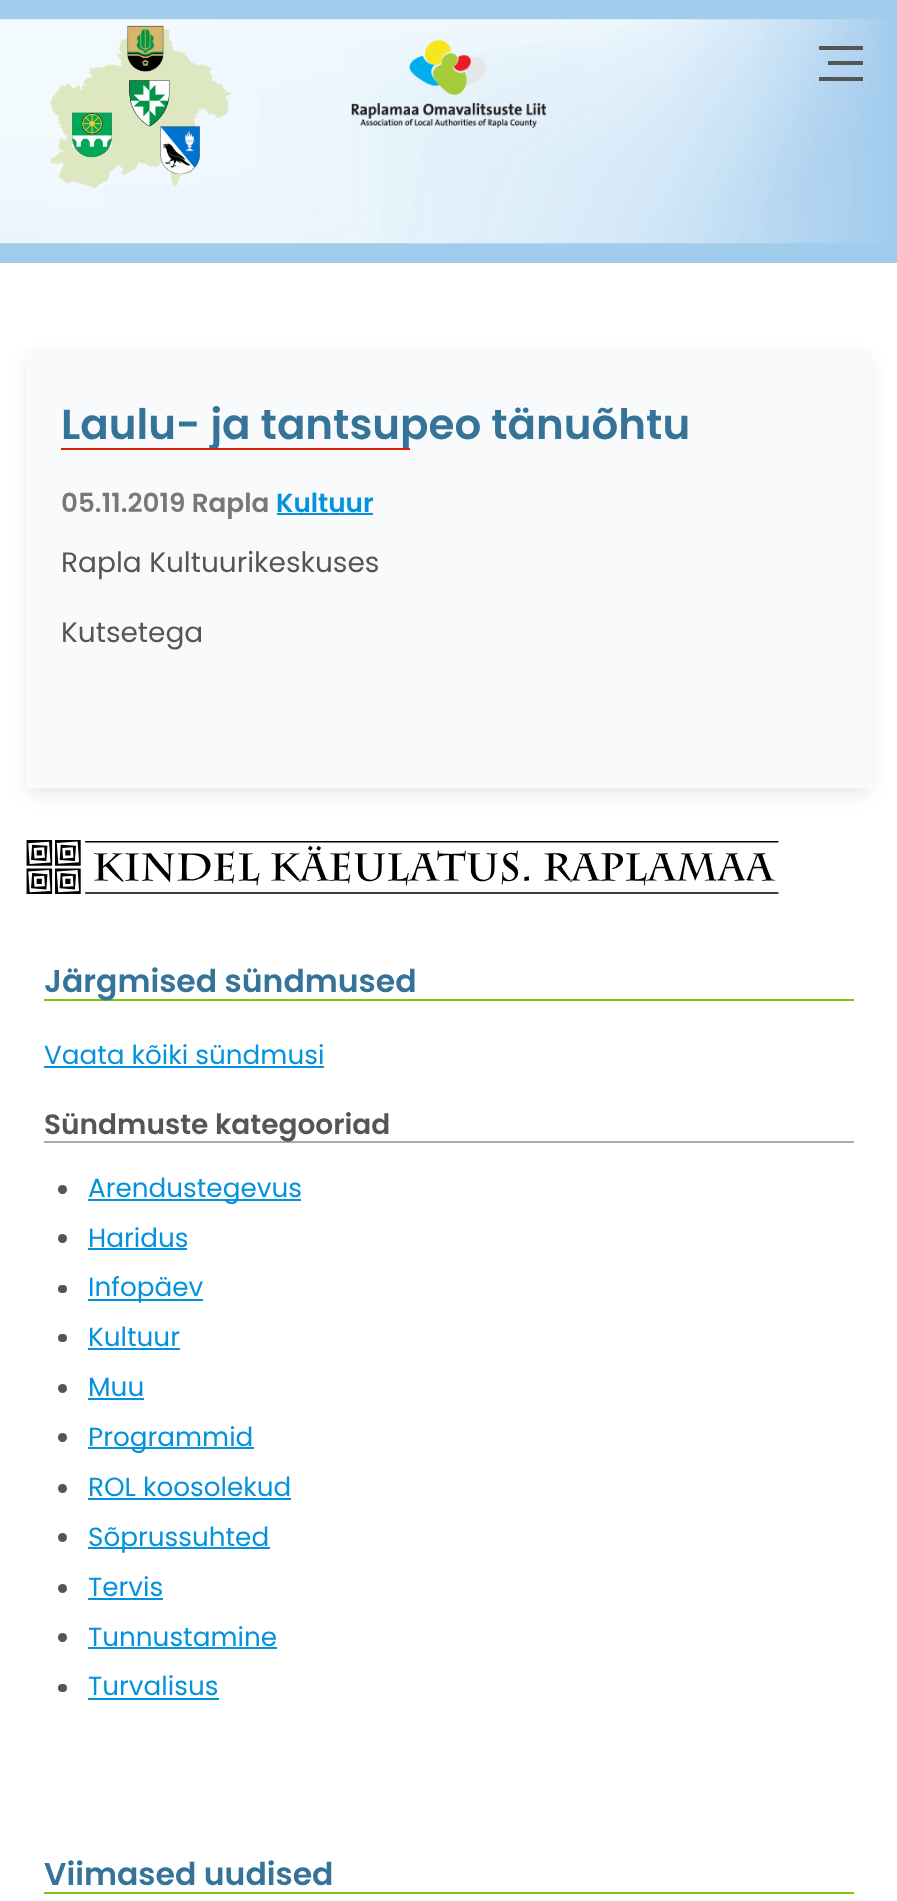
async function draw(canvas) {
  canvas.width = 897
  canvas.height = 1901
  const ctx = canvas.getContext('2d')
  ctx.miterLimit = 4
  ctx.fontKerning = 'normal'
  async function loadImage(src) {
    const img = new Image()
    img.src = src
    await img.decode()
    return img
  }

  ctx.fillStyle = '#fff'
  ctx.fillRect(0, 0, 897, 1901)
  ctx.fillStyle = '#a1ccec'
  ctx.fillRect(0, 0, 897, 263)
  ctx.drawImage(await loadImage('image0.png'), 0, 19, 889, 225)
  ctx.drawImage(await loadImage('image1.png'), 351, 40, 195, 88)
  ctx.fillStyle = '#555'
  ctx.fillRect(828, 61, 35, 4)
  ctx.fillRect(819, 46, 44, 4)
  ctx.fillRect(819, 77, 44, 4)
  ctx.fillStyle = '#0000001a'
  ctx.filter = 'blur(9px)'
  ctx.beginPath()
  ctx.rect(28, 359, 842, 434)
  ctx.fill()
  ctx.filter = 'none'
  ctx.fillStyle = '#f8fafb'
  ctx.fillRect(26, 350, 846, 438)
  ctx.font = '600 42px Poppins'
  ctx.fillStyle = '#357498'
  ctx.fillText('Laulu- ja tantsupeo tänuõhtu', 61, 439)
  ctx.fillStyle = '#dc2102'
  ctx.fillRect(61, 448, 349, 2)
  ctx.font = '600 26.25px Poppins'
  ctx.fillStyle = '#787878'
  ctx.fillText('05.11.2019 Rapla', 61, 512)
  ctx.fillStyle = '#0392db'
  ctx.fillText('Kultuur', 276, 512)
  ctx.fillRect(277, 513, 96, 2)
  ctx.font = '28px Poppins'
  ctx.fillStyle = '#555'
  ctx.fillText('Rapla Kultuurikeskuses', 61, 572)
  ctx.fillText('Kutsetega', 61, 642)
  ctx.drawImage(await loadImage('image2.png'), 26, 840, 753, 54)
  ctx.fillStyle = '#82c310'
  ctx.fillRect(44, 999, 810, 2)
  ctx.font = '600 31.5px Poppins'
  ctx.fillStyle = '#357498'
  ctx.fillText('Järgmised sündmused', 44, 992)
  ctx.font = '26.25px Poppins'
  ctx.fillStyle = '#0392db'
  ctx.fillText('Vaata kõiki sündmusi', 44, 1064)
  ctx.fillRect(44, 1066, 280, 2)
  ctx.fillStyle = '#aaa'
  ctx.fillRect(44, 1141, 810, 2)
  ctx.font = '600 28px Poppins'
  ctx.fillStyle = '#555'
  ctx.fillText('Sündmuste kategooriad', 44, 1134)
  ctx.beginPath()
  ctx.arc(62.5, 1189.5, 4.5, 0, 2 * Math.PI)
  ctx.fill()
  ctx.fillStyle = '#0392db'
  ctx.fillRect(88, 1199, 213, 2)
  ctx.font = '26.25px Poppins'
  ctx.fillText('Arendustegevus', 88, 1197)
  ctx.fillStyle = '#555'
  ctx.beginPath()
  ctx.arc(62.5, 1238.5, 4.5, 0, 2 * Math.PI)
  ctx.fill()
  ctx.fillStyle = '#0392db'
  ctx.fillText('Haridus', 88, 1247)
  ctx.fillRect(88, 1248, 99, 2)
  ctx.fillStyle = '#555'
  ctx.beginPath()
  ctx.roundRect(58, 1285, 9, 8, 4)
  ctx.fill()
  ctx.fillStyle = '#0392db'
  ctx.fillRect(88, 1299, 115, 2)
  ctx.fillText('Infopäev', 88, 1296)
  ctx.fillStyle = '#555'
  ctx.beginPath()
  ctx.roundRect(58, 1334, 9, 8, 4)
  ctx.fill()
  ctx.fillStyle = '#0392db'
  ctx.fillText('Kultuur', 88, 1346)
  ctx.fillRect(88, 1348, 92, 2)
  ctx.fillStyle = '#555'
  ctx.beginPath()
  ctx.arc(62.5, 1388.5, 4.5, 0, 2 * Math.PI)
  ctx.fill()
  ctx.fillStyle = '#0392db'
  ctx.fillText('Muu', 88, 1396)
  ctx.fillRect(88, 1398, 56, 2)
  ctx.fillStyle = '#555'
  ctx.beginPath()
  ctx.arc(62.5, 1437.5, 4.5, 0, 2 * Math.PI)
  ctx.fill()
  ctx.fillStyle = '#0392db'
  ctx.fillRect(88, 1447, 166, 2)
  ctx.fillText('Programmid', 88, 1446)
  ctx.fillStyle = '#555'
  ctx.beginPath()
  ctx.arc(62.5, 1488.5, 4.5, 0, 2 * Math.PI)
  ctx.fill()
  ctx.fillStyle = '#0392db'
  ctx.fillText('ROL koosolekud', 88, 1496)
  ctx.fillRect(88, 1498, 203, 2)
  ctx.fillStyle = '#555'
  ctx.beginPath()
  ctx.arc(62.5, 1537.5, 4.5, 0, 2 * Math.PI)
  ctx.fill()
  ctx.fillStyle = '#0392db'
  ctx.fillRect(88, 1547, 182, 2)
  ctx.fillText('Sõprussuhted', 88, 1546)
  ctx.fillStyle = '#555'
  ctx.beginPath()
  ctx.arc(62.5, 1588.5, 4.5, 0, 2 * Math.PI)
  ctx.fill()
  ctx.fillStyle = '#0392db'
  ctx.fillText('Tervis', 88, 1596)
  ctx.fillRect(88, 1598, 75, 2)
  ctx.fillStyle = '#555'
  ctx.beginPath()
  ctx.arc(62.5, 1637.5, 4.5, 0, 2 * Math.PI)
  ctx.fill()
  ctx.fillStyle = '#0392db'
  ctx.fillText('Tunnustamine', 88, 1646)
  ctx.fillRect(88, 1647, 189, 2)
  ctx.fillStyle = '#555'
  ctx.beginPath()
  ctx.roundRect(58, 1684, 9, 8, 4)
  ctx.fill()
  ctx.fillStyle = '#0392db'
  ctx.fillText('Turvalisus', 88, 1695)
  ctx.fillRect(88, 1698, 131, 2)
  ctx.fillStyle = '#82c310'
  ctx.fillRect(44, 1892, 810, 2)
  ctx.font = '600 31.5px Poppins'
  ctx.fillStyle = '#357498'
  ctx.fillText('Viimased uudised', 44, 1885)
}

draw(document.querySelector('canvas'))
